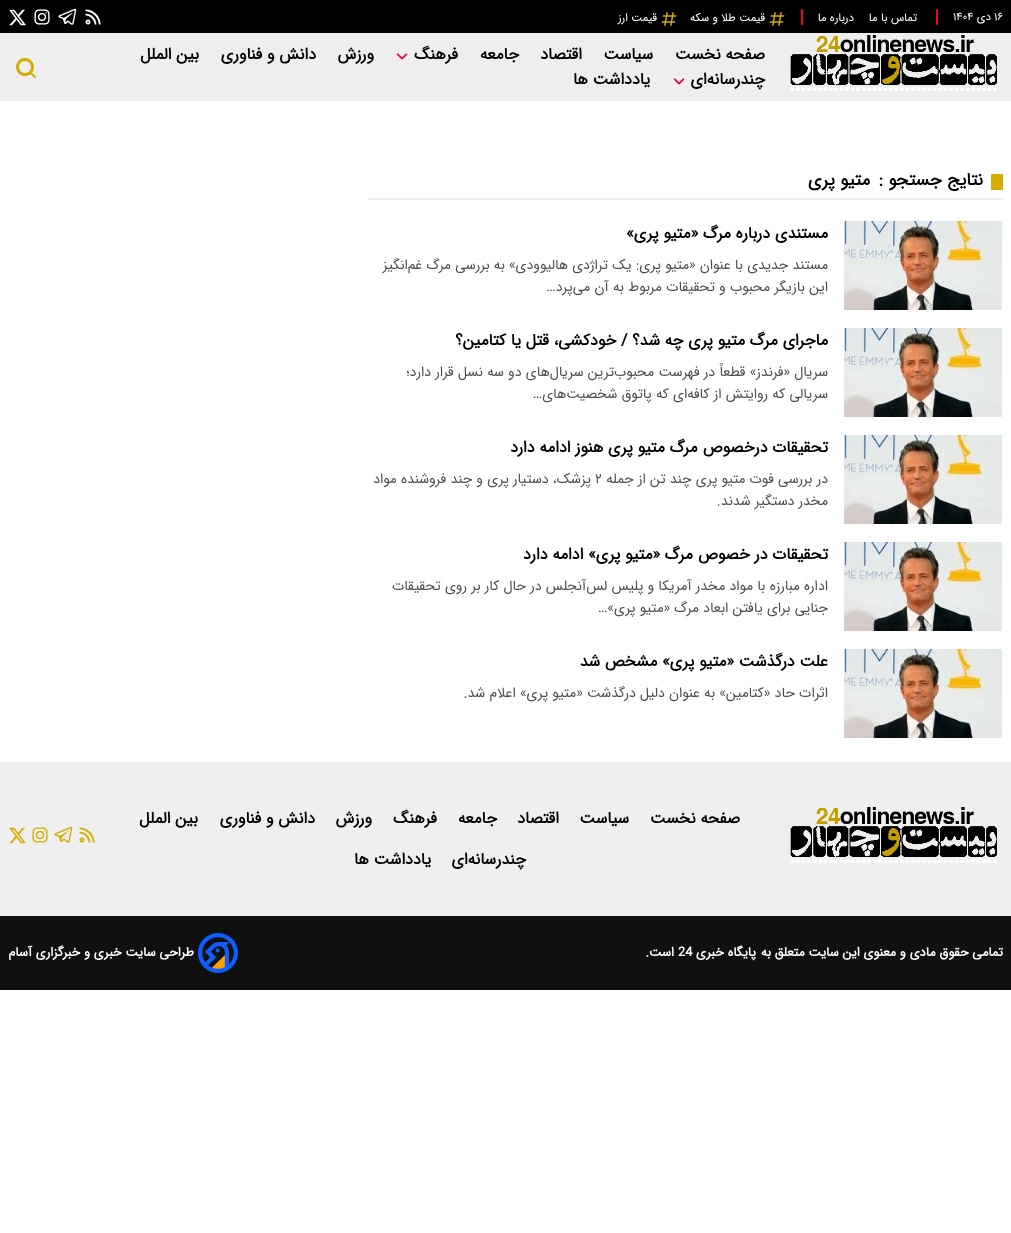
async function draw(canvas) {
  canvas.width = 1011
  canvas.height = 1233
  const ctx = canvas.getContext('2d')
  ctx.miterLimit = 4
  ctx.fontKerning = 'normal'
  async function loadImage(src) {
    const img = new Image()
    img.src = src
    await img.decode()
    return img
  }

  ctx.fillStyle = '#fff'
  ctx.fillRect(0, 0, 1011, 1233)
  ctx.fillStyle = '#000'
  ctx.fillRect(0, 0, 1011, 33)
  ctx.font = '11.25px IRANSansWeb'
  ctx.fillStyle = '#fff'
  ctx.fillText('۱۶', 994, 20)
  ctx.direction = 'rtl'
  ctx.fillText('دی', 991, 20)
  ctx.direction = 'ltr'
  ctx.fillText('۱۴۰۴', 953, 20)
  ctx.beginPath()
  ctx.moveTo(937, 24)
  ctx.lineTo(937, 10)
  ctx.strokeStyle = '#fb0037'
  ctx.lineWidth = 2
  ctx.lineCap = 'round'
  ctx.lineJoin = 'round'
  ctx.stroke()
  ctx.direction = 'rtl'
  ctx.fillText('تماس با ما', 917, 21)
  ctx.fillText('درباره ما', 854, 21)
  ctx.beginPath()
  ctx.moveTo(802, 24)
  ctx.lineTo(802, 10)
  ctx.stroke()
  ctx.drawImage(await loadImage('image0.png'), 769, 12, 16, 14)
  ctx.fillText('قیمت طلا و سکه', 765, 21)
  ctx.drawImage(await loadImage('image0.png'), 661, 12, 16, 14)
  ctx.fillText('قیمت ارز', 657, 21)
  ctx.drawImage(await loadImage('image1.png'), 85, 9, 16, 16)
  ctx.drawImage(await loadImage('image2.png'), 58, 8, 19, 17)
  ctx.drawImage(await loadImage('image3.png'), 34, 9, 16, 16)
  ctx.drawImage(await loadImage('image4.png'), 9, 9, 17, 17)
  ctx.fillStyle = '#efeeef'
  ctx.fillRect(0, 33, 1011, 68)
  ctx.drawImage(await loadImage('image5.png'), 790, 35, 207, 56)
  ctx.font = 'bold 16px IRANSansWeb'
  ctx.fillStyle = '#000'
  ctx.fillText('صفحه نخست', 765, 59)
  ctx.fillText('سیاست', 653, 59)
  ctx.fillText('اقتصاد', 582, 59)
  ctx.fillText('جامعه', 519, 59)
  ctx.fillText('فرهنگ', 458, 59)
  ctx.drawImage(await loadImage('image6.png'), 396, 53, 12, 7)
  ctx.fillText('ورزش', 374, 59)
  ctx.fillText('دانش و فناوری', 316, 59)
  ctx.fillText('بین الملل', 199, 59)
  ctx.fillText('چندرسانه‌ای', 765, 84)
  ctx.drawImage(await loadImage('image6.png'), 673, 78, 12, 7)
  ctx.fillText('یادداشت ها', 650, 84)
  ctx.drawImage(await loadImage('image7.png'), 16, 58, 20, 20)
  ctx.fillStyle = '#efeeef'
  ctx.fillRect(368, 198, 635, 2)
  ctx.fillStyle = '#d5ac00'
  ctx.fillRect(991, 174, 12, 16)
  ctx.font = 'bold 17.5px IRANSansWeb'
  ctx.fillStyle = '#000'
  ctx.fillText('نتایج جستجو :', 983, 185)
  ctx.fillText('متیو پری', 870, 185)
  ctx.drawImage(await loadImage('image8.png'), 844, 221, 158, 89)
  ctx.font = 'bold 16px IRANSansWeb'
  ctx.fillText('مستندی درباره مرگ «متیو پری»', 828, 238)
  ctx.font = '14px IRANSansWeb'
  ctx.fillStyle = '#4e4e4e'
  ctx.fillText('مستند جدیدی با عنوان «متیو پری: یک تراژدی هالیوودی» به بررسی مرگ غم‌انگیز', 828, 269)
  ctx.fillText('این بازیگر محبوب و تحقیقات مربوط به آن می‌پرد…', 828, 291)
  ctx.drawImage(await loadImage('image8.png'), 844, 328, 158, 89)
  ctx.font = 'bold 16px IRANSansWeb'
  ctx.fillStyle = '#000'
  ctx.fillText('ماجرای مرگ متیو پری چه شد؟ / خودکشی، قتل یا کتامین؟', 828, 345)
  ctx.font = '14px IRANSansWeb'
  ctx.fillStyle = '#4e4e4e'
  ctx.fillText('سریال «فرندز» قطعاً در فهرست محبوب‌ترین سریال‌های دو سه نسل قرار دارد؛', 828, 376)
  ctx.fillText('سریالی که روایتش از کافه‌ای که پاتوق شخصیت‌های…', 828, 398)
  ctx.drawImage(await loadImage('image9.png'), 844, 435, 158, 89)
  ctx.font = 'bold 16px IRANSansWeb'
  ctx.fillStyle = '#000'
  ctx.fillText('تحقیقات درخصوص مرگ متیو پری هنوز ادامه دارد', 828, 452)
  ctx.font = '14px IRANSansWeb'
  ctx.fillStyle = '#4e4e4e'
  ctx.fillText('در بررسی فوت متیو پری چند تن از جمله', 828, 483)
  ctx.direction = 'ltr'
  ctx.fillText('۲', 595, 483)
  ctx.direction = 'rtl'
  ctx.fillText('پزشک، دستیار پری و چند فروشنده مواد', 591, 483)
  ctx.fillText('مخدر دستگیر شدند.', 828, 505)
  ctx.drawImage(await loadImage('image9.png'), 844, 542, 158, 89)
  ctx.font = 'bold 16px IRANSansWeb'
  ctx.fillStyle = '#000'
  ctx.fillText('تحقیقات در خصوص مرگ «متیو پری» ادامه دارد', 828, 559)
  ctx.font = '14px IRANSansWeb'
  ctx.fillStyle = '#4e4e4e'
  ctx.fillText('اداره مبارزه با مواد مخدر آمریکا و پلیس لس‌آنجلس در حال کار بر روی تحقیقات', 828, 590)
  ctx.fillText('جنایی برای یافتن ابعاد مرگ «متیو پری»…', 828, 612)
  ctx.drawImage(await loadImage('image8.png'), 844, 649, 158, 89)
  ctx.font = 'bold 16px IRANSansWeb'
  ctx.fillStyle = '#000'
  ctx.fillText('علت درگذشت «متیو پری» مشخص شد', 828, 666)
  ctx.font = '14px IRANSansWeb'
  ctx.fillStyle = '#4e4e4e'
  ctx.fillText('اثرات حاد «کتامین» به عنوان دلیل درگذشت «متیو پری» اعلام شد.', 828, 697)
  ctx.fillStyle = '#efefef'
  ctx.fillRect(0, 762, 1011, 154)
  ctx.drawImage(await loadImage('image10.png'), 790, 807, 207, 56)
  ctx.font = 'bold 16px IRANSansWeb'
  ctx.fillStyle = '#000'
  ctx.fillText('صفحه نخست', 740, 823)
  ctx.fillText('سیاست', 629, 823)
  ctx.fillText('اقتصاد', 559, 823)
  ctx.fillText('جامعه', 497, 823)
  ctx.fillText('فرهنگ', 437, 823)
  ctx.fillText('ورزش', 372, 823)
  ctx.fillText('دانش و فناوری', 315, 823)
  ctx.fillText('بین الملل', 198, 823)
  ctx.fillText('چندرسانه‌ای', 526, 864)
  ctx.fillText('یادداشت ها', 431, 864)
  ctx.drawImage(await loadImage('image11.png'), 79, 827, 16, 16)
  ctx.drawImage(await loadImage('image12.png'), 54, 826, 19, 17)
  ctx.drawImage(await loadImage('image13.png'), 32, 827, 16, 16)
  ctx.drawImage(await loadImage('image14.png'), 9, 827, 17, 17)
  ctx.fillStyle = '#101010'
  ctx.fillRect(0, 916, 1011, 74)
  ctx.font = 'bold 12.75px IRANSansWeb'
  ctx.fillStyle = '#fff'
  ctx.fillText('تمامی حقوق مادی و معنوی این سایت متعلق به', 1003, 956)
  ctx.fillText('پایگاه خبری', 756, 956)
  ctx.direction = 'ltr'
  ctx.fillText('24', 678, 956)
  ctx.direction = 'rtl'
  ctx.fillText('است.', 674, 956)
  ctx.drawImage(await loadImage('image15.png'), 198, 933, 40, 40)
  ctx.fillText('طراحی سایت خبری و خبرگزاری آسام', 194, 956)
}

draw(document.querySelector('canvas'))
